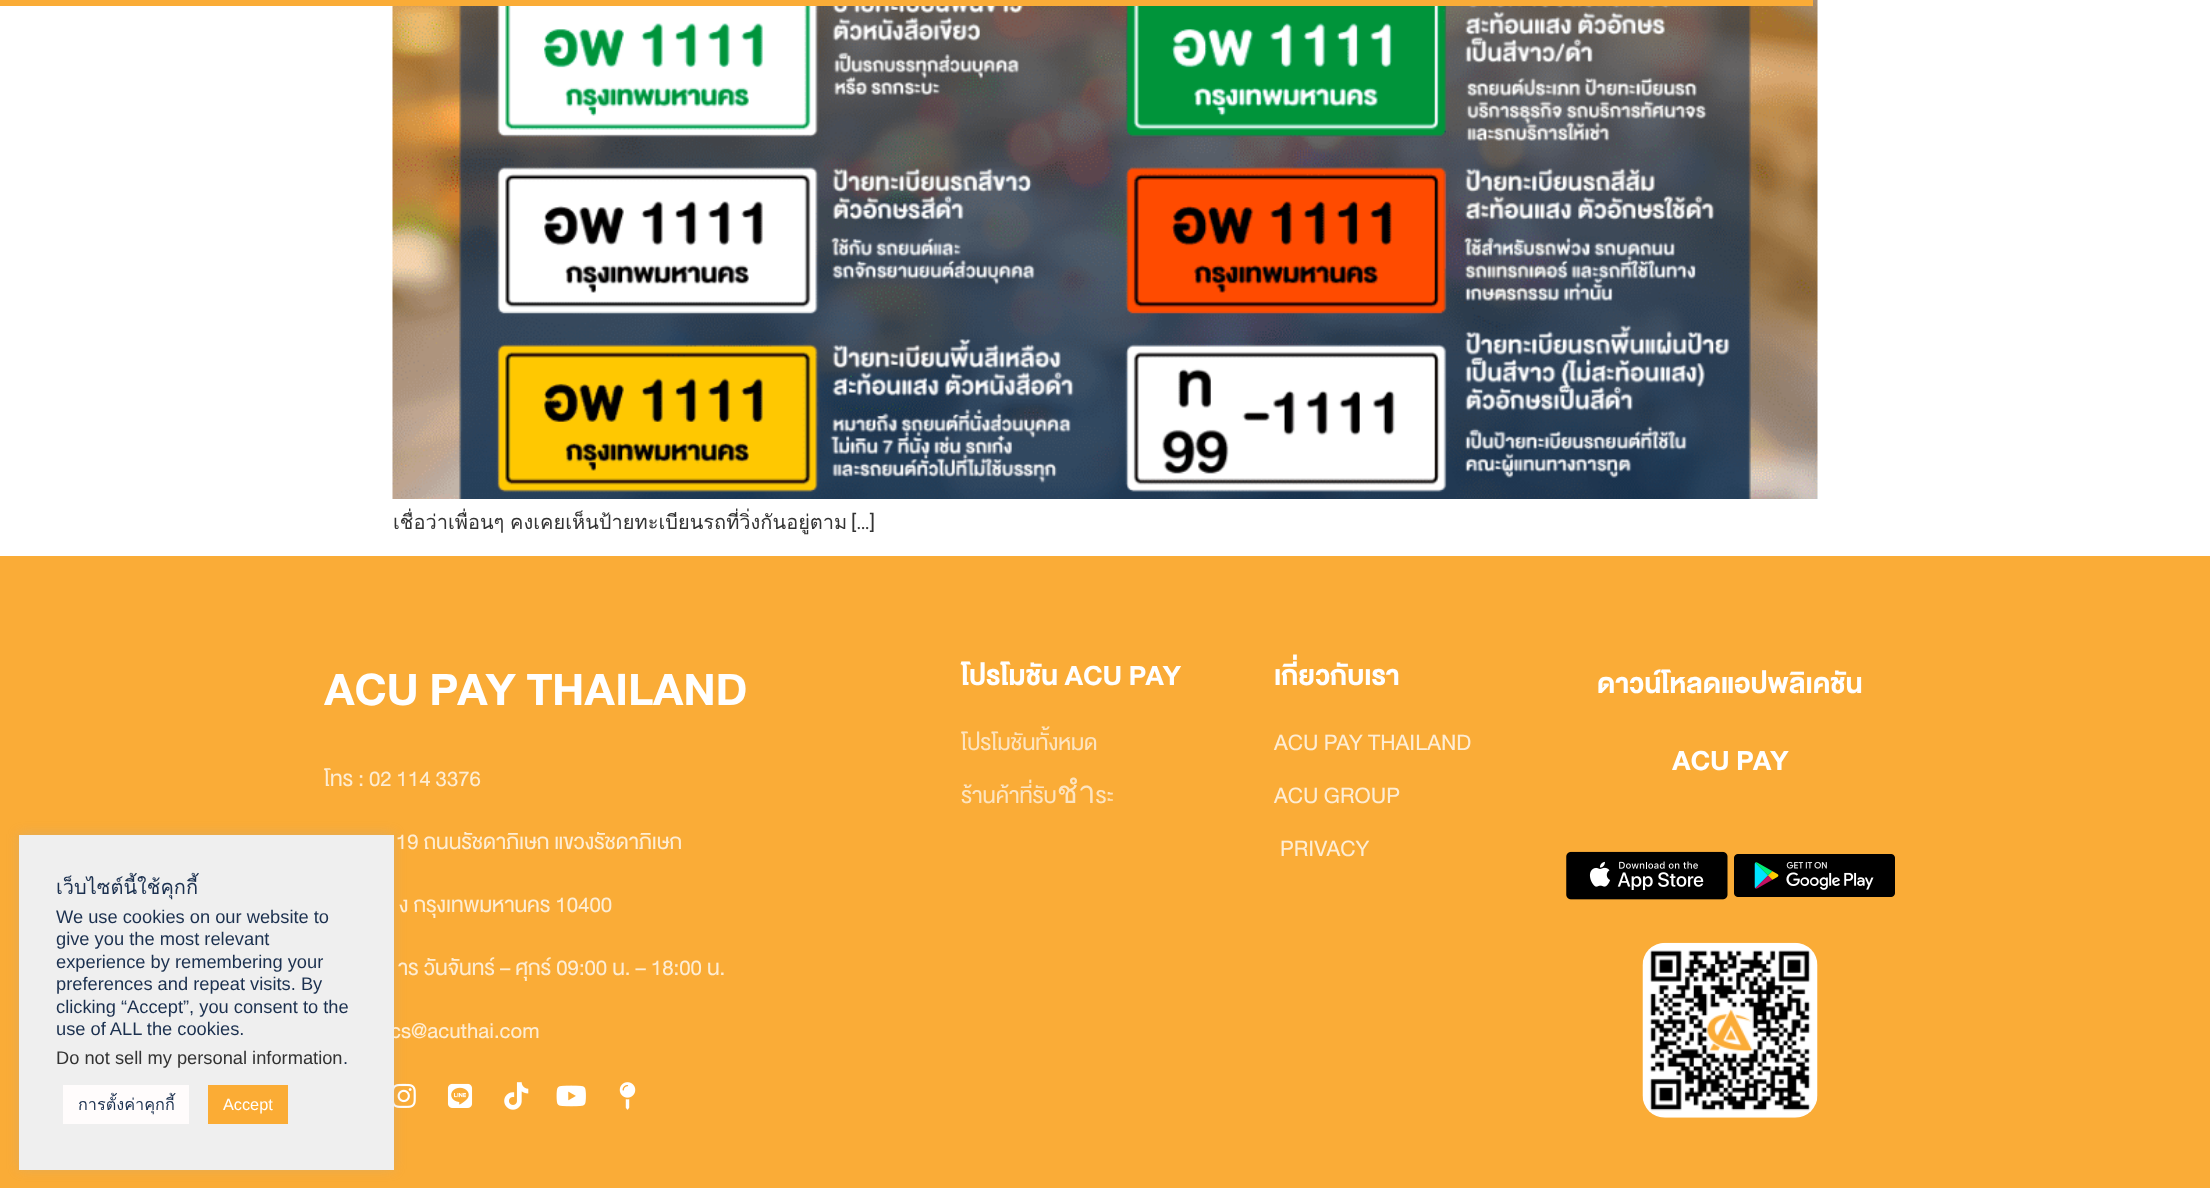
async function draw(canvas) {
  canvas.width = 2210
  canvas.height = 1188
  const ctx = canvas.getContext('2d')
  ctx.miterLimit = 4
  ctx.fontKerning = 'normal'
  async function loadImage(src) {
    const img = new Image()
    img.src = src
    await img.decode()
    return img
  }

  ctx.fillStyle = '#fff'
  ctx.fillRect(0, 0, 2210, 1188)
  ctx.drawImage(await loadImage('image0.png'), 392, 0, 1426, 499)
  ctx.fillStyle = '#faac37'
  ctx.fillRect(0, 0, 1813, 6)
  ctx.wordSpacing = '-1px'
  ctx.font = '20px Loma'
  ctx.fillStyle = '#333'
  ctx.fillText('เชื่อว่าเพื่อนๆ คงเคยเห็นป้ายทะเบียนรถที่วิ่งกันอยู่ตาม', 393, 529)
  ctx.wordSpacing = '0px'
  ctx.font = '20px Roboto'
  ctx.fillText('[…]', 851, 529)
  ctx.fillStyle = '#faac37'
  ctx.fillRect(0, 556, 2210, 632)
  ctx.drawImage(await loadImage('image1.png'), 394, 1083, 22, 25)
  ctx.fillStyle = '#acabab4d'
  ctx.filter = 'blur(6px)'
  ctx.beginPath()
  ctx.rect(19, 834, 375, 335)
  ctx.fill()
  ctx.filter = 'none'
  ctx.font = '30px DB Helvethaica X'
  ctx.fillStyle = '#feedd3'
  ctx.fillText('cs@acuthai.com', 390, 1038)
  ctx.fillStyle = '#efefef'
  ctx.fillRect(19, 835, 375, 335)
  ctx.font = '20px Loma'
  ctx.fillStyle = '#1b304f'
  ctx.fillText('เว็บไซต์นี้ใช้คุกกี้', 56, 894)
  ctx.font = '18.3px Liberation Sans'
  ctx.fillText('We use cookies on our website to', 56, 923)
  ctx.fillText('give you the most relevant', 56, 945)
  ctx.fillText('experience by remembering your', 56, 968)
  ctx.fillText('preferences and repeat visits. By', 56, 990)
  ctx.fillText('clicking “Accept”, you consent to the', 56, 1013)
  ctx.fillText('use of ALL the cookies.', 56, 1035)
  ctx.fillStyle = '#333'
  ctx.fillText('Do not sell my personal information', 56, 1064)
  ctx.fillStyle = '#1b304f'
  ctx.fillText('.', 343, 1064)
  ctx.fillStyle = '#fffcfc'
  ctx.fillRect(63, 1085, 126, 39)
  ctx.font = '16.25px Loma'
  ctx.fillStyle = '#1b304f'
  ctx.fillText('การตั้งค่าคุกกี้', 78, 1110)
  ctx.fillStyle = '#fbac35'
  ctx.fillRect(208, 1085, 80, 39)
  ctx.font = '16.25px Liberation Sans'
  ctx.fillStyle = '#fff'
  ctx.fillText('Accept', 223, 1110)
  ctx.font = 'bold 63.75px DB Helvethaica X'
  ctx.fillText('ACU PAY THAILAND', 324, 705)
  ctx.font = '30px DB Helvethaica X'
  ctx.fillStyle = '#feedd3'
  ctx.fillText('โทร : 02 114 3376', 324, 786)
  ctx.fillText('19 ถนนรัชดาภิเษก แขวงรัชดาภิเษก', 396, 849)
  ctx.fillText('ง กรุงเทพมหานคร 10400', 399, 912)
  ctx.fillText('าร วันจันทร์ – ศุกร์ 09:00 น. – 18:00 น.', 398, 975)
  ctx.drawImage(await loadImage('image2.png'), 447, 1083, 26, 25)
  ctx.drawImage(await loadImage('image3.png'), 504, 1082, 25, 28)
  ctx.drawImage(await loadImage('image4.png'), 556, 1085, 30, 22)
  ctx.drawImage(await loadImage('image5.png'), 619, 1082, 17, 28)
  ctx.font = 'bold 38.75px DB Helvethaica X'
  ctx.fillStyle = '#fff'
  ctx.fillText('โปรโมชัน ACU PAY', 961, 685)
  ctx.font = '31.25px DB Helvethaica X'
  ctx.fillStyle = '#fde4bf'
  ctx.fillText('โปรโมชันทั้งหมด', 961, 750)
  ctx.fillText('ร้านค้าที่รับชำระ', 961, 803)
  ctx.font = 'bold 38.75px DB Helvethaica X'
  ctx.fillStyle = '#fff'
  ctx.fillText('เกี่ยวกับเรา', 1274, 685)
  ctx.font = '31.25px DB Helvethaica X'
  ctx.fillStyle = '#feedd3'
  ctx.fillText('ACU PAY THAILAND', 1274, 750)
  ctx.fillText('ACU GROUP', 1274, 803)
  ctx.fillText('PRIVACY', 1280, 856)
  ctx.font = 'bold 38.75px DB Helvethaica X'
  ctx.fillStyle = '#fff'
  ctx.fillText('ดาวน์โหลดแอปพลิเคชัน', 1597, 693)
  ctx.fillText('ACU PAY', 1672, 770)
  ctx.drawImage(await loadImage('image6.png'), 1566, 851, 162, 49)
  ctx.drawImage(await loadImage('image7.png'), 1734, 854, 161, 43)
  ctx.drawImage(await loadImage('image8.png'), 1642, 942, 176, 176)
}

draw(document.querySelector('canvas'))
